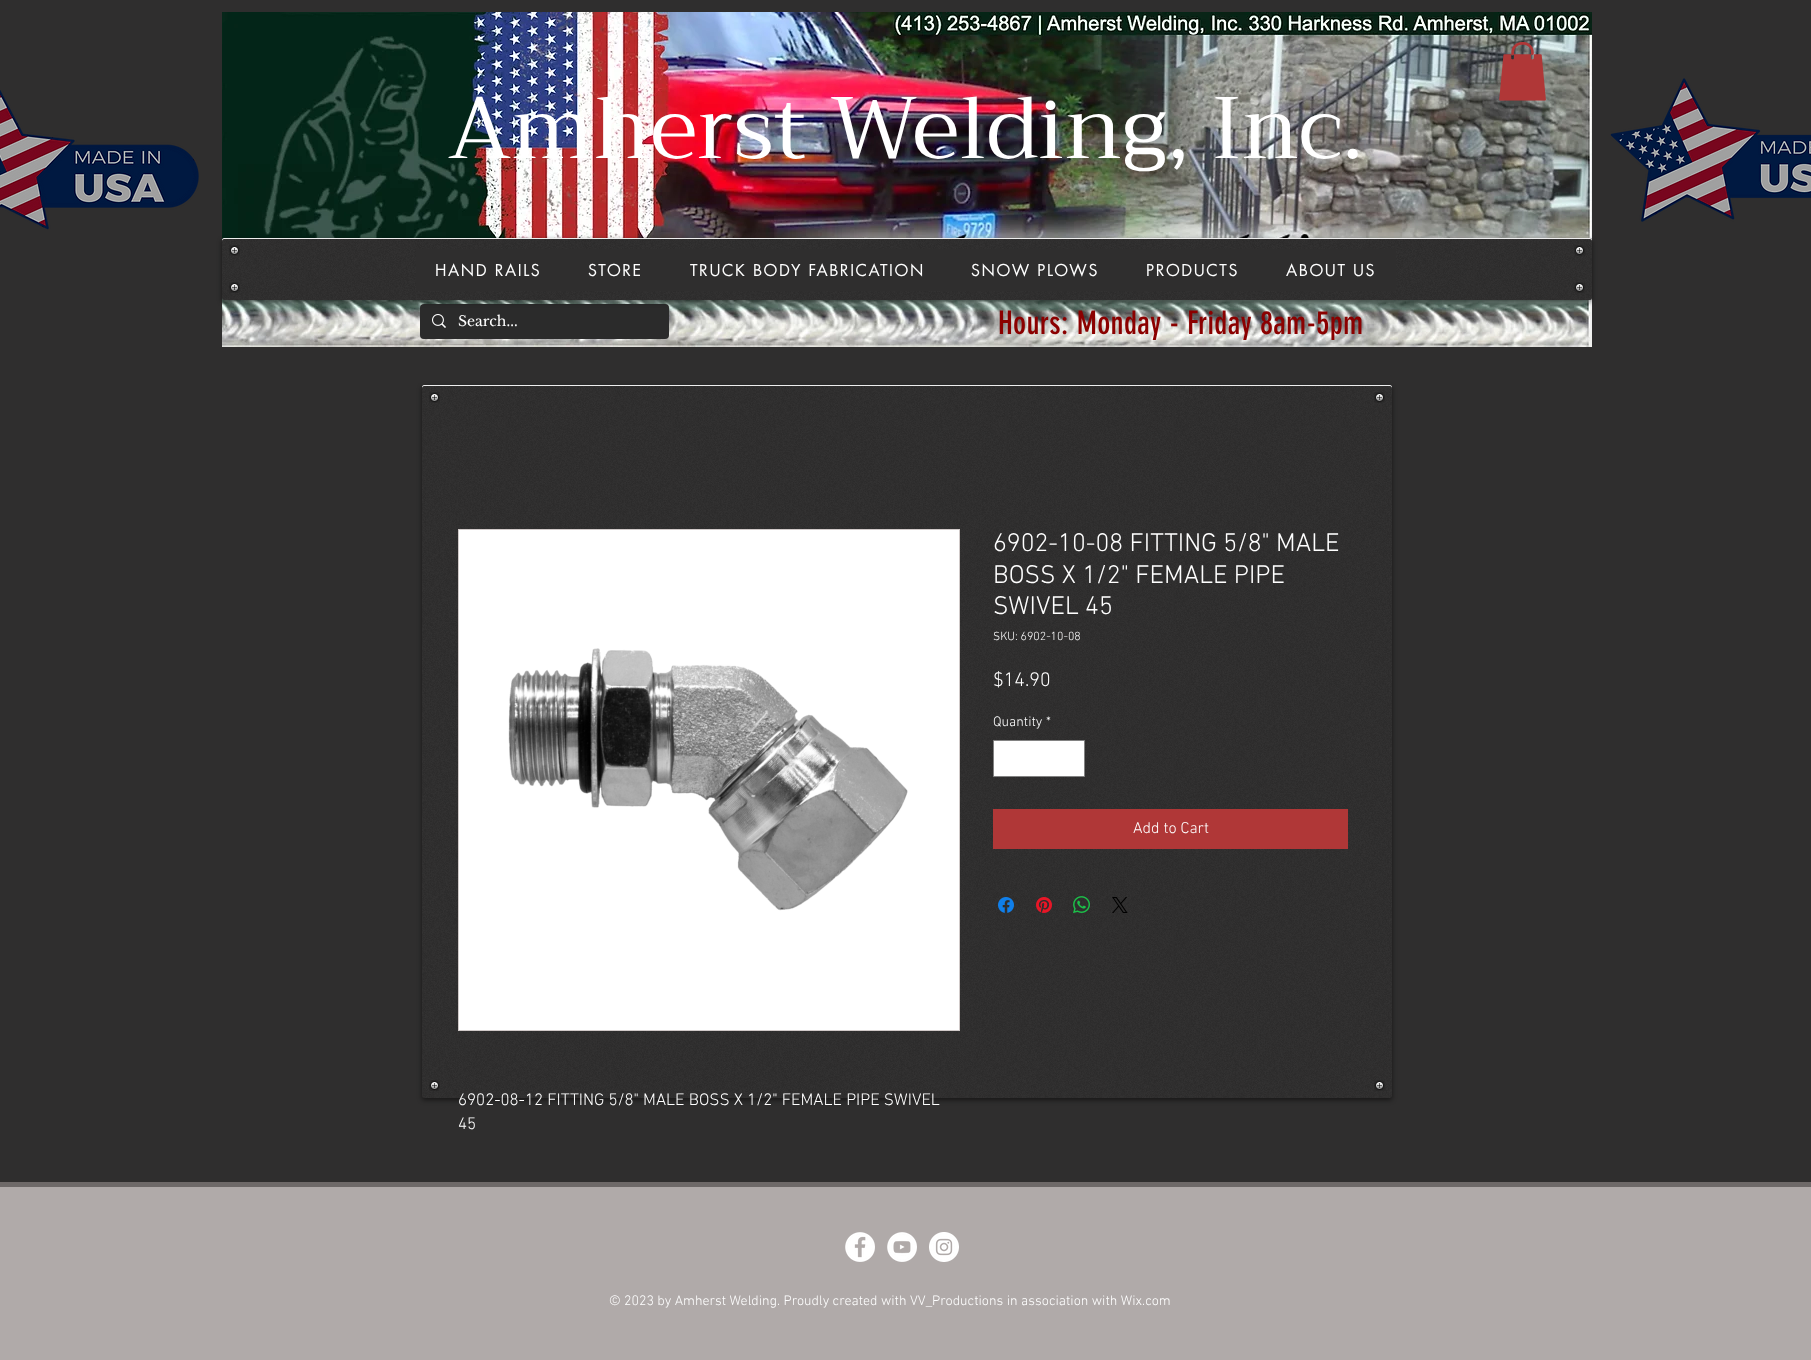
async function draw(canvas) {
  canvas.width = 1811
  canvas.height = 1360
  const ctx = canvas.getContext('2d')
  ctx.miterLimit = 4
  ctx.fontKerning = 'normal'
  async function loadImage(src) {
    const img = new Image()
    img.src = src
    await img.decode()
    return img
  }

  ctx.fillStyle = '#2f2e2e'
  ctx.fillRect(0, 0, 1811, 1360)
  ctx.drawImage(await loadImage('image0.png'), 222, 12, 1370, 335)
  ctx.drawImage(await loadImage('image1.png'), 1499, 42, 47, 59)
  ctx.drawImage(await loadImage('image2.png'), 0, 90, 199, 140)
  ctx.font = '87px Trirong'
  ctx.fillStyle = '#fff'
  ctx.fillText('Amherst Welding, Inc.', 448, 158)
  ctx.drawImage(await loadImage('image3.png'), 1610, 78, 201, 144)
  ctx.fillStyle = '#2b2b2b'
  ctx.beginPath()
  ctx.roundRect(420, 304, 249, 35, 4)
  ctx.fill()
  ctx.fillStyle = '#00000087'
  ctx.filter = 'blur(2.5px)'
  ctx.beginPath()
  ctx.roundRect(222, 240, 1370, 62, 2)
  ctx.fill()
  ctx.filter = 'none'
  ctx.fillStyle = '#2f2e2e'
  ctx.beginPath()
  ctx.roundRect(222, 238, 1370, 62, 2)
  ctx.fill()
  ctx.drawImage(await loadImage('image4.png'), 222, 238, 1370, 62)
  ctx.fillStyle = '#ffffffeb'
  ctx.beginPath()
  ctx.moveTo(224, 239)
  ctx.lineTo(1590, 239)
  ctx.bezierCurveTo(1591, 239, 1592, 240, 1592, 241)
  ctx.lineTo(1592, 240)
  ctx.bezierCurveTo(1592, 239, 1591, 238, 1590, 238)
  ctx.lineTo(224, 238)
  ctx.bezierCurveTo(223, 238, 222, 239, 222, 240)
  ctx.lineTo(222, 241)
  ctx.bezierCurveTo(222, 240, 223, 239, 224, 239)
  ctx.closePath()
  ctx.fill()
  ctx.drawImage(await loadImage('image5.png'), 229, 245, 11, 11)
  ctx.drawImage(await loadImage('image6.png'), 1574, 245, 11, 11)
  ctx.fillStyle = '#2f2e2e'
  ctx.fillRect(416, 249, 980, 42)
  ctx.letterSpacing = '1.6px'
  ctx.font = '16px futura'
  ctx.fillStyle = '#fff'
  ctx.fillText('HAND RAILS', 435, 276)
  ctx.fillText('STORE', 588, 276)
  ctx.fillText('TRUCK BODY FABRICATION', 690, 276)
  ctx.fillText('SNOW PLOWS', 971, 276)
  ctx.fillText('PRODUCTS', 1146, 276)
  ctx.fillText('ABOUT US', 1286, 276)
  ctx.drawImage(await loadImage('image7.png'), 229, 282, 11, 11)
  ctx.drawImage(await loadImage('image8.png'), 1574, 282, 11, 11)
  ctx.drawImage(await loadImage('image9.png'), 432, 314, 14, 14)
  ctx.letterSpacing = '0px'
  ctx.font = '14px Libre Baskerville'
  ctx.fillText('Search...', 458, 326)
  ctx.letterSpacing = '0.3px'
  ctx.font = '32px "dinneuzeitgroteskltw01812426"'
  ctx.fillStyle = '#8b0000'
  ctx.fillText('Hours: Monday - Friday 8am-5pm', 998, 334)
  ctx.save()
  ctx.beginPath()
  ctx.moveTo(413, 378)
  ctx.lineTo(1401, 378)
  ctx.lineTo(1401, 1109)
  ctx.lineTo(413, 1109)
  ctx.closePath()
  ctx.moveTo(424, 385)
  ctx.lineTo(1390, 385)
  ctx.bezierCurveTo(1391, 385, 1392, 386, 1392, 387)
  ctx.lineTo(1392, 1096)
  ctx.bezierCurveTo(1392, 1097, 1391, 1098, 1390, 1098)
  ctx.lineTo(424, 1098)
  ctx.bezierCurveTo(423, 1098, 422, 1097, 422, 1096)
  ctx.lineTo(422, 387)
  ctx.bezierCurveTo(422, 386, 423, 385, 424, 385)
  ctx.closePath()
  ctx.clip('evenodd')
  ctx.fillStyle = '#00000087'
  ctx.filter = 'blur(2.5px)'
  ctx.beginPath()
  ctx.roundRect(422, 387, 970, 713, 2)
  ctx.fill()
  ctx.filter = 'none'
  ctx.restore()
  ctx.drawImage(await loadImage('image10.png'), 422, 385, 970, 713)
  ctx.fillStyle = '#ffffffeb'
  ctx.beginPath()
  ctx.moveTo(424, 386)
  ctx.lineTo(1390, 386)
  ctx.bezierCurveTo(1391, 386, 1392, 387, 1392, 388)
  ctx.lineTo(1392, 387)
  ctx.bezierCurveTo(1392, 386, 1391, 385, 1390, 385)
  ctx.lineTo(424, 385)
  ctx.bezierCurveTo(423, 385, 422, 386, 422, 387)
  ctx.lineTo(422, 388)
  ctx.bezierCurveTo(422, 387, 423, 386, 424, 386)
  ctx.closePath()
  ctx.fill()
  ctx.drawImage(await loadImage('image5.png'), 429, 392, 11, 11)
  ctx.drawImage(await loadImage('image11.png'), 1374, 392, 11, 11)
  ctx.drawImage(await loadImage('image12.png'), 429, 1080, 11, 11)
  ctx.drawImage(await loadImage('image13.png'), 1374, 1080, 11, 11)
  ctx.letterSpacing = '0px'
  ctx.font = '300 26px "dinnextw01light"'
  ctx.fillStyle = '#fff'
  ctx.fillText('6902-10-08 FITTING 5/8" MALE', 993, 551)
  ctx.fillText('BOSS X 1/2" FEMALE PIPE', 993, 583)
  ctx.fillText('SWIVEL 45', 993, 614)
  ctx.font = '300 12px "dinnextw01light"'
  ctx.fillText('SKU: 6902-10-08', 993, 640)
  ctx.font = '300 20px "dinnextw01light"'
  ctx.fillText('$14.90', 993, 686)
  ctx.font = '300 14px "dinnextw01light"'
  ctx.fillText('Quantity', 993, 726)
  ctx.fillText('*', 1046, 726)
  ctx.beginPath()
  ctx.rect(993.5, 740.5, 91, 36)
  ctx.fill()
  ctx.strokeStyle = '#828282'
  ctx.stroke()
  ctx.fillStyle = '#b03737'
  ctx.fillRect(993, 809, 355, 40)
  ctx.font = '300 16px "dinnextw01light"'
  ctx.fillStyle = '#fff'
  ctx.fillText('Add to Cart', 1133, 833)
  ctx.drawImage(await loadImage('image14.png'), 998, 897, 16, 16)
  ctx.drawImage(await loadImage('image15.png'), 1036, 897, 16, 16)
  ctx.drawImage(await loadImage('image16.png'), 1073, 896, 17, 17)
  ctx.drawImage(await loadImage('image17.png'), 1112, 897, 16, 16)
  ctx.strokeStyle = '#d1cac9'
  ctx.strokeRect(458.5, 529.5, 501, 501)
  ctx.drawImage(await loadImage('image18.png'), 459, 530, 500, 500)
  ctx.font = '300 17px "dinnextw01light"'
  ctx.fillText('6902-08-12 FITTING 5/8" MALE BOSS X 1/2" FEMALE PIPE SWIVEL', 458, 1105)
  ctx.fillText('45', 458, 1129)
  ctx.fillStyle = '#b0aaa9'
  ctx.fillRect(0, 1187, 1811, 173)
  ctx.fillStyle = '#6e6968'
  ctx.fillRect(0, 1182, 1811, 5)
  ctx.drawImage(await loadImage('image19.png'), 845, 1232, 30, 30)
  ctx.drawImage(await loadImage('image20.png'), 887, 1232, 30, 30)
  ctx.drawImage(await loadImage('image21.png'), 929, 1232, 30, 30)
  ctx.font = '300 14px "dinnextw01light"'
  ctx.fillStyle = '#fff'
  ctx.fillText('© 2023 by Amherst Welding. Proudly created with VV_Productions in association with Wix.com', 609, 1305)
}

draw(document.querySelector('canvas'))
